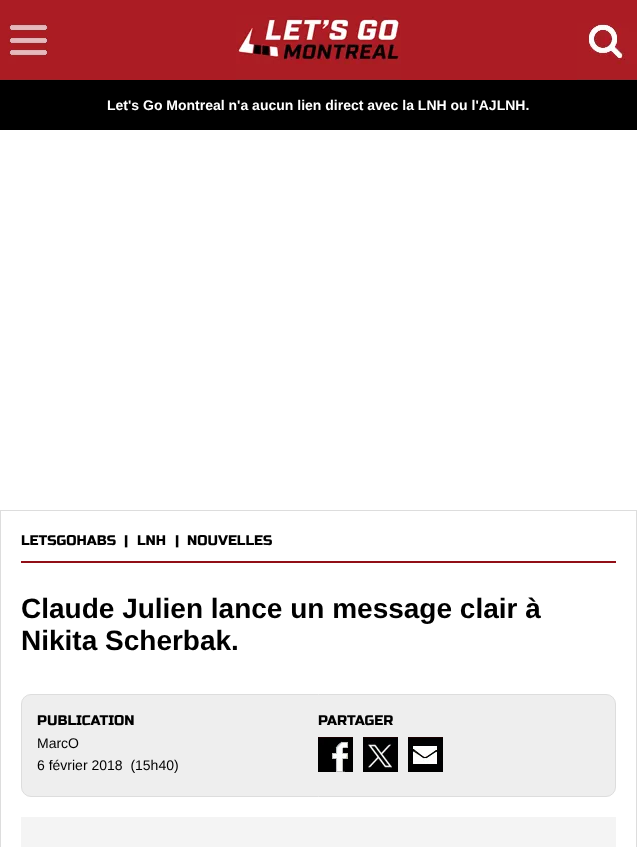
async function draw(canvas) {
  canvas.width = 637
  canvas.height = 847
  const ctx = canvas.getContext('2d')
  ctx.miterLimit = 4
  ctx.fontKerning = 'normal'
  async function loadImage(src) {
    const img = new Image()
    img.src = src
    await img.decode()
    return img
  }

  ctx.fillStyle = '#fff'
  ctx.fillRect(0, 0, 637, 847)
  ctx.fillStyle = '#ab1c24'
  ctx.fillRect(0, 0, 637, 80)
  ctx.drawImage(await loadImage('image0.png'), 0, 23, 60, 57)
  ctx.drawImage(await loadImage('image1.png'), 236, 15, 165, 65)
  ctx.drawImage(await loadImage('image2.png'), 577, 23, 60, 57)
  ctx.fillStyle = '#000'
  ctx.fillRect(0, 80, 637, 50)
  ctx.font = 'bold 14px Liberation Sans'
  ctx.fillStyle = '#fff'
  ctx.fillText('Let\'s Go Montreal n\'a aucun lien direct avec la LNH ou l\'AJLNH.', 107, 110)
  ctx.fillStyle = '#ddd'
  ctx.fillRect(0, 510, 637, 1)
  ctx.fillRect(636, 510, 1, 337)
  ctx.fillRect(0, 510, 1, 337)
  ctx.fillStyle = '#910f17'
  ctx.fillRect(21, 561, 595, 2)
  ctx.font = '14px Russo One'
  ctx.fillStyle = '#000'
  ctx.fillText('LETSGOHABS', 21, 545)
  ctx.fillText('|', 124, 545)
  ctx.fillText('LNH', 137, 545)
  ctx.fillText('|', 175, 545)
  ctx.fillText('NOUVELLES', 187, 545)
  ctx.font = 'bold 28px Liberation Sans'
  ctx.fillText('Claude Julien lance un message clair à', 21, 618)
  ctx.fillText('Nikita Scherbak.', 21, 650)
  ctx.fillStyle = '#eee'
  ctx.beginPath()
  ctx.roundRect(21.5, 694.5, 594, 102, 9.5)
  ctx.fill()
  ctx.strokeStyle = '#ddd'
  ctx.stroke()
  ctx.font = '14px Russo One'
  ctx.fillStyle = '#000'
  ctx.fillText('PUBLICATION', 37, 725)
  ctx.font = '14px Liberation Sans'
  ctx.fillText('MarcO', 37, 748)
  ctx.fillText('6 février 2018  (15h40)', 37, 770)
  ctx.font = '14px Russo One'
  ctx.fillText('PARTAGER', 318, 725)
  ctx.drawImage(await loadImage('image3.png'), 318, 737, 35, 35)
  ctx.drawImage(await loadImage('image4.png'), 363, 737, 35, 35)
  ctx.drawImage(await loadImage('image5.png'), 408, 737, 35, 35)
  ctx.fillStyle = '#f4f4f4'
  ctx.fillRect(21, 817, 595, 30)
}

draw(document.querySelector('canvas'))
